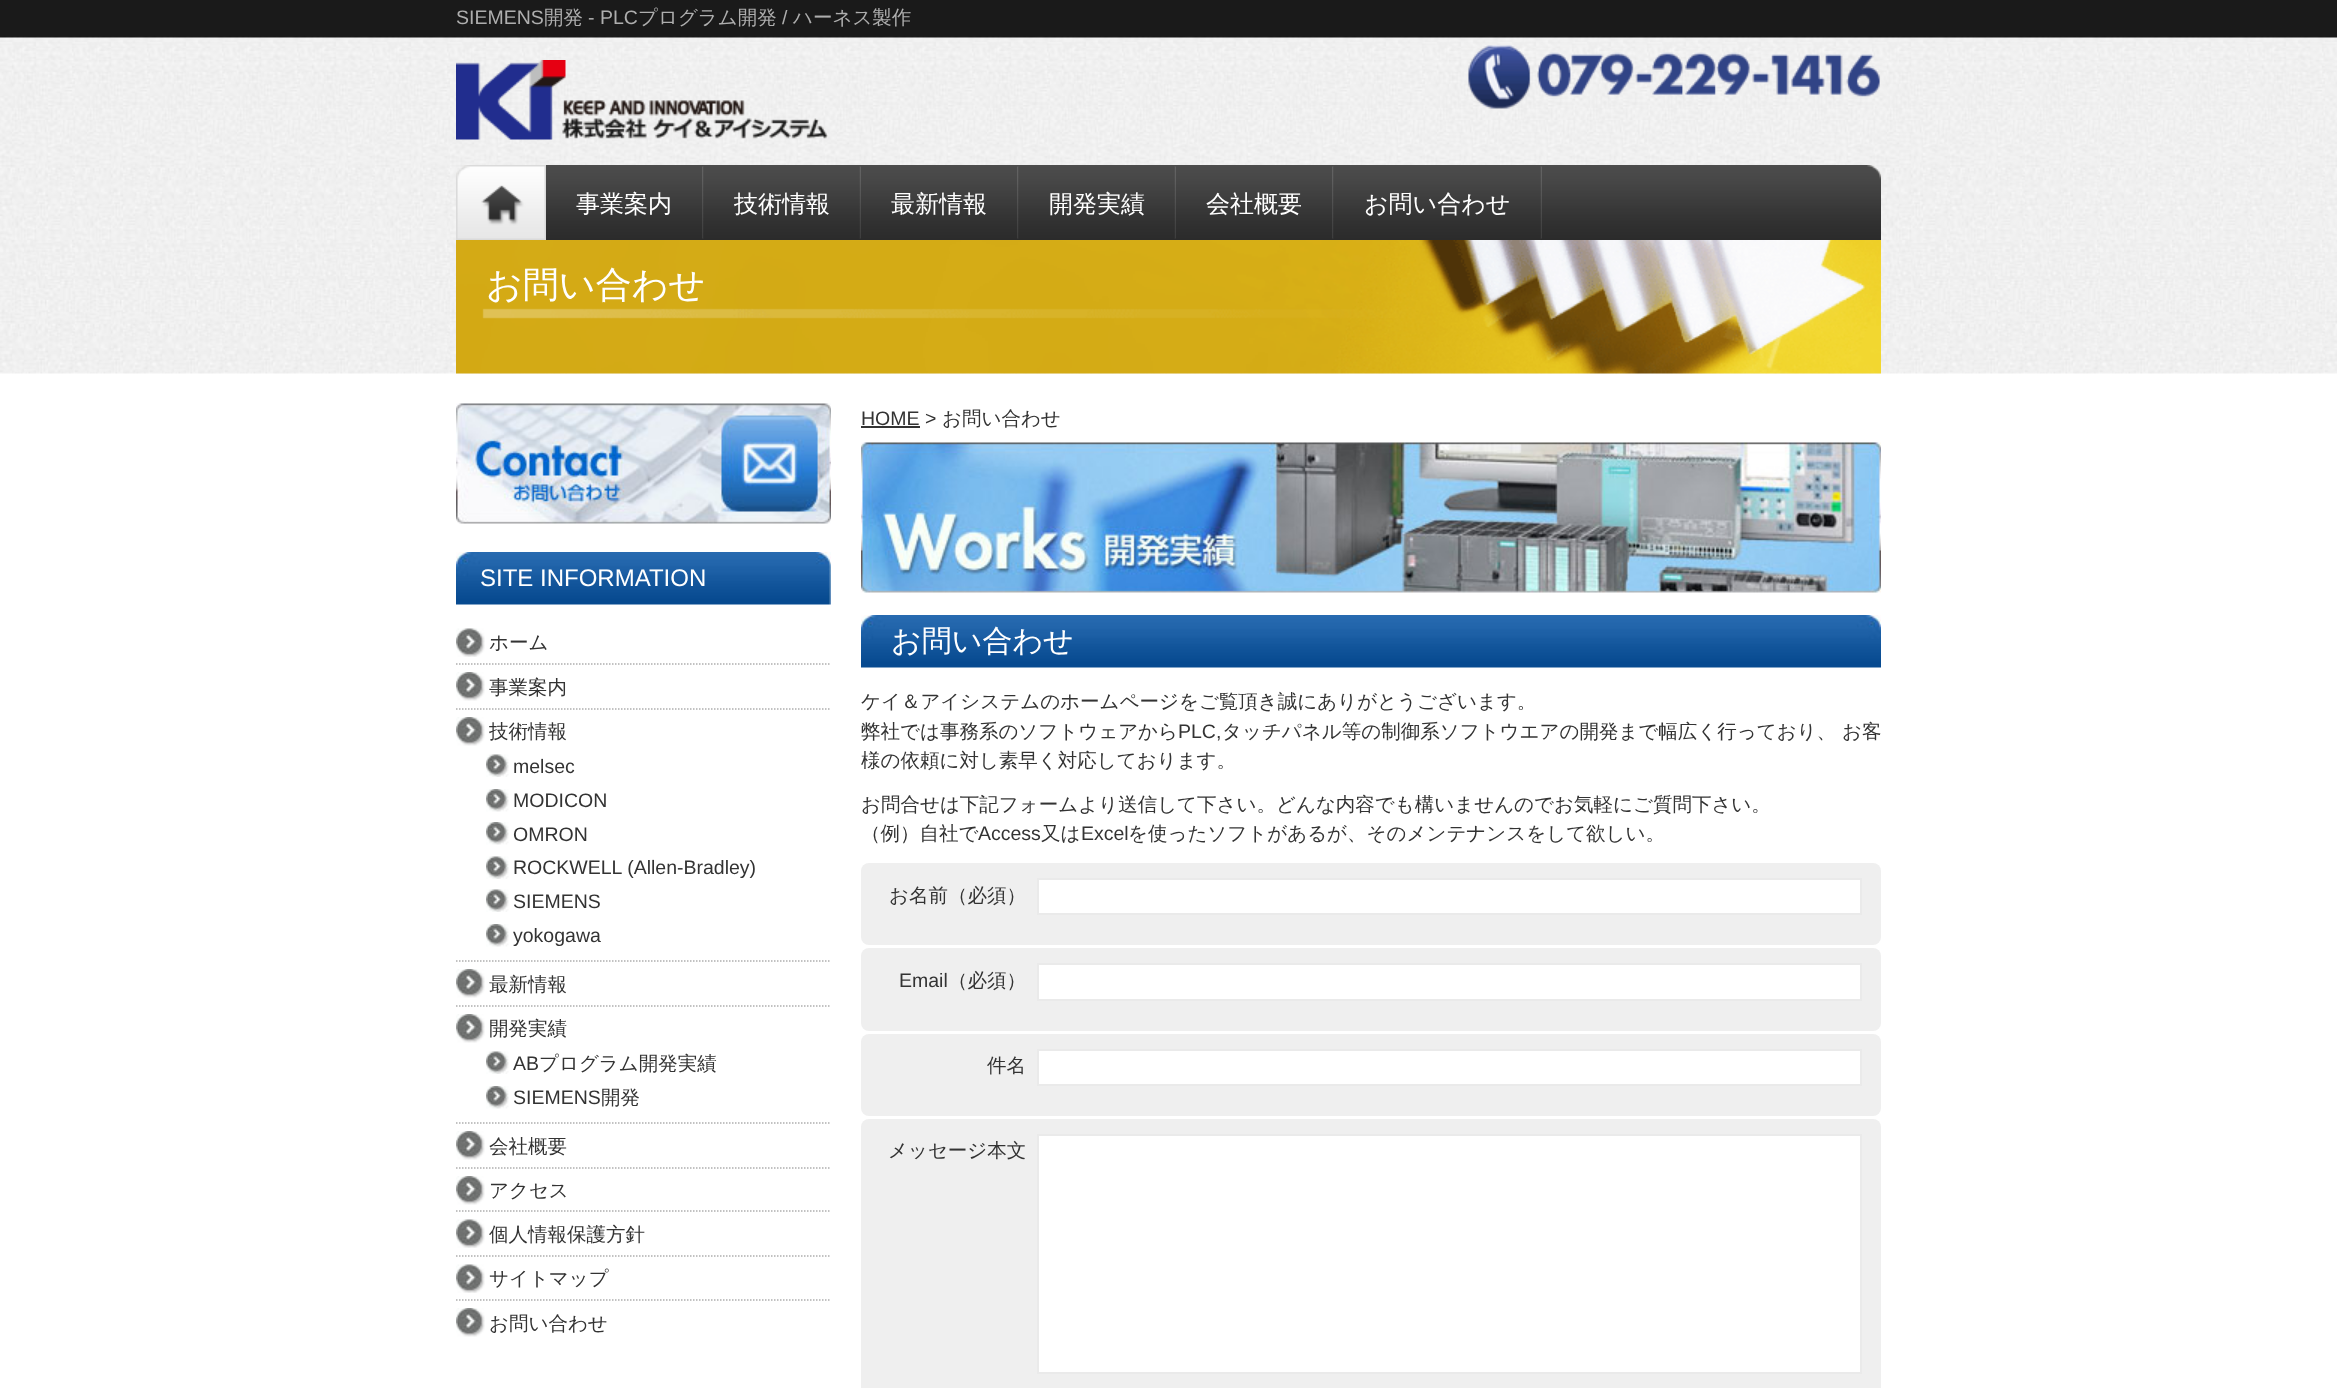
async function draw(canvas) {
  canvas.width = 2337
  canvas.height = 1388
  const ctx = canvas.getContext('2d')
  ctx.miterLimit = 4
  ctx.fontKerning = 'normal'
  async function loadImage(src) {
    const img = new Image()
    img.src = src
    await img.decode()
    return img
  }

  ctx.fillStyle = '#fff'
  ctx.fillRect(0, 0, 2337, 1388)
  ctx.drawImage(await loadImage('image0.png'), 0, 0, 2337, 374)
  ctx.font = '19.5px Liberation Sans'
  ctx.fillStyle = '#aeaeae'
  ctx.fillText('SIEMENS', 456, 24)
  ctx.font = '500 19.5px WenQuanYi Zen Hei'
  ctx.fillText('開発', 544, 24)
  ctx.font = '19.5px Liberation Sans'
  ctx.fillText('- PLC', 588, 24)
  ctx.font = '500 19.5px WenQuanYi Zen Hei'
  ctx.fillText('プログラム開発', 638, 24)
  ctx.font = '19.5px Liberation Sans'
  ctx.fillText('/', 782, 24)
  ctx.font = '500 19.5px WenQuanYi Zen Hei'
  ctx.fillText('ハーネス製作', 793, 24)
  ctx.drawImage(await loadImage('image1.png'), 456, 60, 372, 80)
  ctx.drawImage(await loadImage('image2.png'), 1468, 45, 412, 64)
  ctx.drawImage(await loadImage('image3.png'), 546, 165, 1335, 75)
  ctx.drawImage(await loadImage('image4.png'), 456, 165, 90, 75)
  ctx.drawImage(await loadImage('image5.png'), 702, 166, 2, 73)
  ctx.font = '500 24px WenQuanYi Zen Hei'
  ctx.fillStyle = '#fff'
  ctx.fillText('事業案内', 576, 212)
  ctx.drawImage(await loadImage('image6.png'), 859, 166, 2, 73)
  ctx.drawImage(await loadImage('image7.png'), 703, 167, 157, 71)
  ctx.fillText('技術情報', 734, 212)
  ctx.drawImage(await loadImage('image5.png'), 1017, 166, 2, 73)
  ctx.fillText('最新情報', 891, 212)
  ctx.drawImage(await loadImage('image6.png'), 1174, 166, 2, 73)
  ctx.drawImage(await loadImage('image7.png'), 1018, 167, 157, 71)
  ctx.fillText('開発実績', 1049, 212)
  ctx.drawImage(await loadImage('image5.png'), 1332, 166, 2, 73)
  ctx.fillText('会社概要', 1206, 212)
  ctx.drawImage(await loadImage('image6.png'), 1540, 166, 2, 73)
  ctx.drawImage(await loadImage('image8.png'), 1333, 167, 208, 71)
  ctx.fillText('お問い合わせ', 1364, 212)
  ctx.drawImage(await loadImage('image9.png'), 456, 240, 1425, 134)
  ctx.font = '500 36px WenQuanYi Zen Hei'
  ctx.fillText('お問い合わせ', 486, 297)
  ctx.drawImage(await loadImage('image10.png'), 456, 403, 375, 121)
  ctx.drawImage(await loadImage('image11.png'), 456, 552, 375, 53)
  ctx.font = '24px Liberation Sans'
  ctx.fillText('SITE INFORMATION', 480, 586)
  ctx.beginPath()
  ctx.moveTo(456, 664)
  ctx.lineTo(831, 664)
  ctx.strokeStyle = '#aeaeae'
  ctx.lineWidth = 1.5
  ctx.setLineDash([1.5, 1.5])
  ctx.stroke()
  ctx.drawImage(await loadImage('image12.png'), 456, 628, 29, 29)
  ctx.font = '500 19.5px WenQuanYi Zen Hei'
  ctx.fillStyle = '#333'
  ctx.fillText('ホーム', 489, 649)
  ctx.beginPath()
  ctx.moveTo(456, 709)
  ctx.lineTo(831, 709)
  ctx.stroke()
  ctx.drawImage(await loadImage('image13.png'), 456, 672, 29, 29)
  ctx.fillText('事業案内', 489, 694)
  ctx.beginPath()
  ctx.moveTo(456, 961)
  ctx.lineTo(831, 961)
  ctx.stroke()
  ctx.drawImage(await loadImage('image13.png'), 456, 717, 29, 29)
  ctx.fillText('技術情報', 489, 738)
  ctx.drawImage(await loadImage('image14.png'), 486, 754, 23, 23)
  ctx.font = '19.5px Liberation Sans'
  ctx.fillText('melsec', 513, 773)
  ctx.drawImage(await loadImage('image15.png'), 486, 789, 23, 23)
  ctx.fillText('MODICON', 513, 807)
  ctx.drawImage(await loadImage('image15.png'), 486, 822, 23, 23)
  ctx.fillText('OMRON', 513, 841)
  ctx.drawImage(await loadImage('image14.png'), 486, 856, 23, 23)
  ctx.fillText('ROCKWELL (Allen-Bradley)', 513, 874)
  ctx.drawImage(await loadImage('image14.png'), 486, 889, 23, 23)
  ctx.fillText('SIEMENS', 513, 908)
  ctx.drawImage(await loadImage('image15.png'), 486, 924, 23, 23)
  ctx.fillText('yokogawa', 513, 942)
  ctx.beginPath()
  ctx.moveTo(456, 1006)
  ctx.lineTo(831, 1006)
  ctx.stroke()
  ctx.drawImage(await loadImage('image13.png'), 456, 969, 29, 29)
  ctx.font = '500 19.5px WenQuanYi Zen Hei'
  ctx.fillText('最新情報', 489, 991)
  ctx.beginPath()
  ctx.moveTo(456, 1123)
  ctx.lineTo(831, 1123)
  ctx.stroke()
  ctx.drawImage(await loadImage('image13.png'), 456, 1014, 29, 29)
  ctx.fillText('開発実績', 489, 1035)
  ctx.drawImage(await loadImage('image14.png'), 486, 1051, 23, 23)
  ctx.font = '19.5px Liberation Sans'
  ctx.fillText('AB', 513, 1070)
  ctx.font = '500 19.5px WenQuanYi Zen Hei'
  ctx.fillText('プログラム開発実績', 539, 1070)
  ctx.drawImage(await loadImage('image15.png'), 486, 1086, 23, 23)
  ctx.font = '19.5px Liberation Sans'
  ctx.fillText('SIEMENS', 513, 1104)
  ctx.font = '500 19.5px WenQuanYi Zen Hei'
  ctx.fillText('開発', 601, 1104)
  ctx.beginPath()
  ctx.moveTo(456, 1168)
  ctx.lineTo(831, 1168)
  ctx.stroke()
  ctx.drawImage(await loadImage('image13.png'), 456, 1131, 29, 29)
  ctx.fillText('会社概要', 489, 1153)
  ctx.beginPath()
  ctx.moveTo(456, 1211)
  ctx.lineTo(831, 1211)
  ctx.stroke()
  ctx.drawImage(await loadImage('image13.png'), 456, 1176, 29, 29)
  ctx.fillText('アクセス', 489, 1197)
  ctx.beginPath()
  ctx.moveTo(456, 1256)
  ctx.lineTo(831, 1256)
  ctx.stroke()
  ctx.drawImage(await loadImage('image12.png'), 456, 1219, 29, 29)
  ctx.fillText('個人情報保護方針', 489, 1241)
  ctx.beginPath()
  ctx.moveTo(456, 1300)
  ctx.lineTo(831, 1300)
  ctx.stroke()
  ctx.drawImage(await loadImage('image12.png'), 456, 1264, 29, 29)
  ctx.fillText('サイトマップ', 489, 1285)
  ctx.drawImage(await loadImage('image13.png'), 456, 1308, 29, 29)
  ctx.fillText('お問い合わせ', 489, 1330)
  ctx.font = '19.5px Liberation Sans'
  ctx.fillText('HOME >', 861, 425)
  ctx.fillRect(861, 426, 59, 2)
  ctx.font = '500 19.5px WenQuanYi Zen Hei'
  ctx.fillText('お問い合わせ', 942, 425)
  ctx.drawImage(await loadImage('image16.png'), 861, 442, 1020, 151)
  ctx.drawImage(await loadImage('image17.png'), 861, 615, 1020, 53)
  ctx.font = '500 30px WenQuanYi Zen Hei'
  ctx.fillStyle = '#fff'
  ctx.fillText('お問い合わせ', 891, 651)
  ctx.font = '500 19.5px WenQuanYi Zen Hei'
  ctx.fillStyle = '#333'
  ctx.fillText('ケイ＆アイシステムのホームページをご覧頂き誠にありがとうございます。', 861, 708)
  ctx.fillText('弊社では事務系のソフトウェアから', 861, 738)
  ctx.font = '19.5px Liberation Sans'
  ctx.fillText('PLC,', 1178, 738)
  ctx.font = '500 19.5px WenQuanYi Zen Hei'
  ctx.fillText('タッチパネル等の制御系ソフトウエアの開発まで幅広く行っており、 お客', 1222, 738)
  ctx.fillText('様の依頼に対し素早く対応しております。', 861, 767)
  ctx.fillText('お問合せは下記フォームより送信して下さい。どんな内容でも構いませんのでお気軽にご質問下さい。', 861, 811)
  ctx.fillText('（例）自社で', 861, 840)
  ctx.font = '19.5px Liberation Sans'
  ctx.fillText('Access', 978, 840)
  ctx.font = '500 19.5px WenQuanYi Zen Hei'
  ctx.fillText('又は', 1041, 840)
  ctx.font = '19.5px Liberation Sans'
  ctx.fillText('Excel', 1081, 840)
  ctx.font = '500 19.5px WenQuanYi Zen Hei'
  ctx.fillText('を使ったソフトがあるが、そのメンテナンスをして欲しい。', 1128, 840)
  ctx.fillStyle = '#efefef'
  ctx.beginPath()
  ctx.roundRect(861, 863, 1020, 82, 8)
  ctx.fill()
  ctx.fillStyle = '#333'
  ctx.fillText('お名前（必須）', 889, 902)
  ctx.fillStyle = '#fff'
  ctx.beginPath()
  ctx.rect(1038, 879, 823, 35)
  ctx.fill()
  ctx.strokeStyle = '#eaeaea'
  ctx.lineWidth = 2
  ctx.setLineDash([])
  ctx.stroke()
  ctx.fillStyle = '#efefef'
  ctx.beginPath()
  ctx.roundRect(861, 948, 1020, 83, 8)
  ctx.fill()
  ctx.font = '19.5px Liberation Sans'
  ctx.fillStyle = '#333'
  ctx.fillText('Email', 899, 987)
  ctx.font = '500 19.5px WenQuanYi Zen Hei'
  ctx.fillText('（必須）', 948, 987)
  ctx.fillStyle = '#fff'
  ctx.beginPath()
  ctx.rect(1038, 964, 823, 36)
  ctx.fill()
  ctx.stroke()
  ctx.fillStyle = '#efefef'
  ctx.beginPath()
  ctx.roundRect(861, 1034, 1020, 82, 8)
  ctx.fill()
  ctx.fillStyle = '#333'
  ctx.fillText('件名', 987, 1072)
  ctx.fillStyle = '#fff'
  ctx.beginPath()
  ctx.rect(1038, 1050, 823, 35)
  ctx.fill()
  ctx.stroke()
  ctx.fillStyle = '#efefef'
  ctx.beginPath()
  ctx.roundRect(861, 1119, 1020, 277, 8)
  ctx.fill()
  ctx.fillStyle = '#333'
  ctx.fillText('メッセージ本文', 888, 1157)
  ctx.fillStyle = '#fff'
  ctx.beginPath()
  ctx.rect(1038, 1135, 823, 238)
  ctx.fill()
  ctx.stroke()
}

draw(document.querySelector('canvas'))
